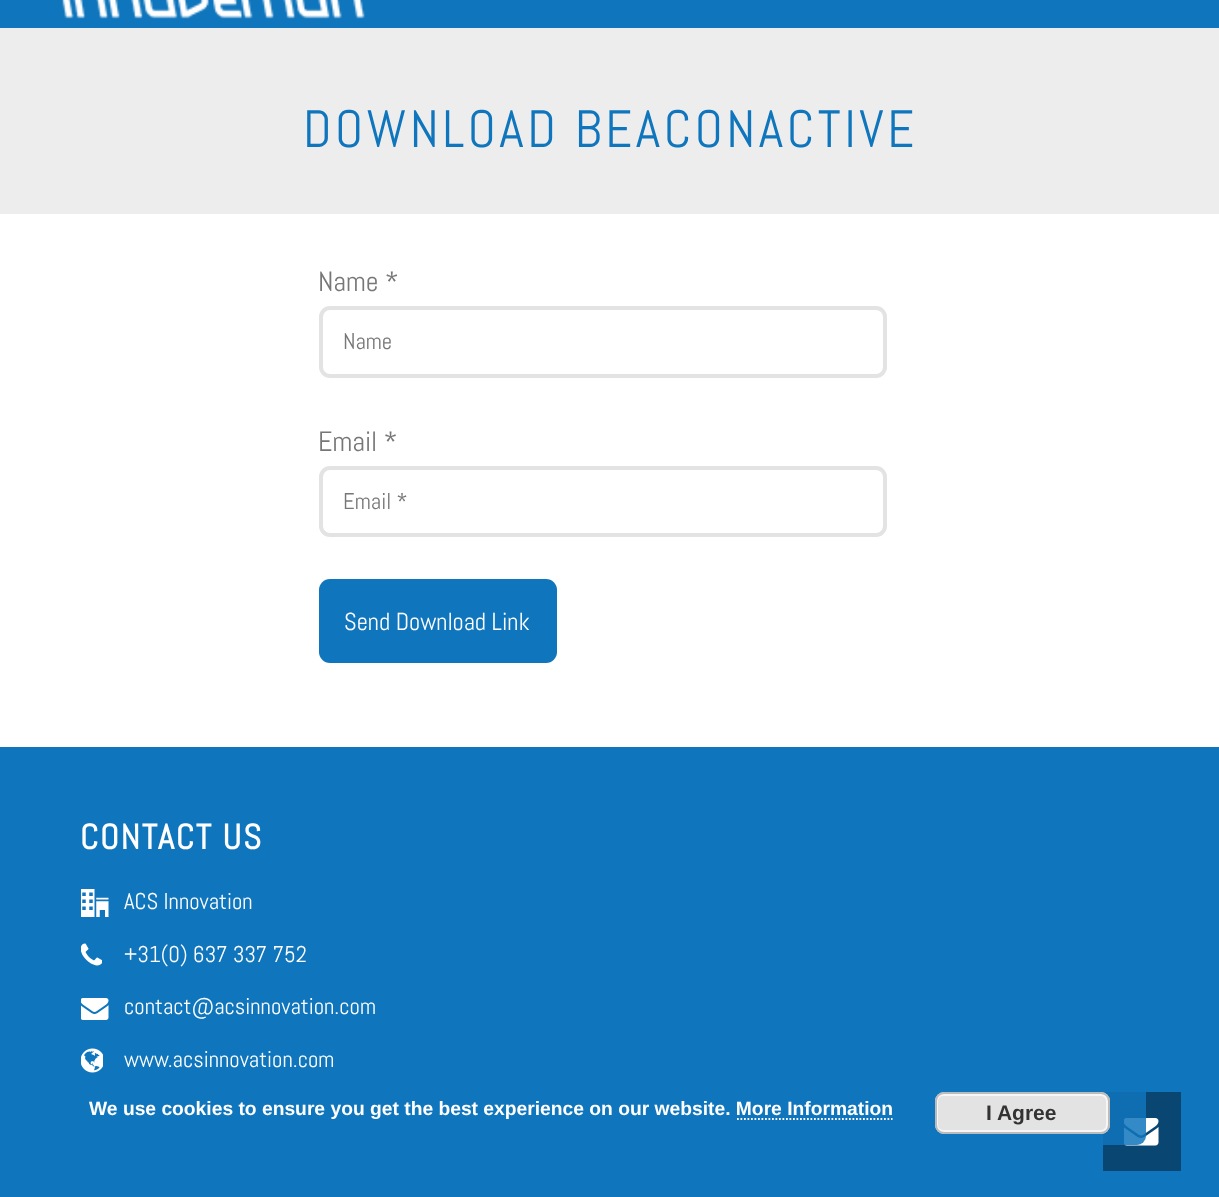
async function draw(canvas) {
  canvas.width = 1219
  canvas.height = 1197
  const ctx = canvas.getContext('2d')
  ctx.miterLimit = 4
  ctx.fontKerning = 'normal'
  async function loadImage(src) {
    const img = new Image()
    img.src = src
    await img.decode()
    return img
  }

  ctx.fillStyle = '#fff'
  ctx.fillRect(0, 0, 1219, 1197)
  ctx.fillStyle = '#ededed'
  ctx.fillRect(0, 28, 1219, 186)
  ctx.fillStyle = '#0f75bc'
  ctx.fillRect(0, 0, 1219, 28)
  ctx.drawImage(await loadImage('image0.png'), 62, 0, 303, 19)
  ctx.letterSpacing = '3.5px'
  ctx.font = '52.5px Abel'
  ctx.fillText('DOWNLOAD BEACONACTIVE', 303, 147)
  ctx.letterSpacing = '0px'
  ctx.font = '28px Abel'
  ctx.fillStyle = '#777'
  ctx.fillText('Name *', 318, 291)
  ctx.beginPath()
  ctx.roundRect(321, 308, 564, 68, 9)
  ctx.strokeStyle = '#e3e3e3'
  ctx.lineWidth = 4
  ctx.stroke()
  ctx.font = '22.75px Abel'
  ctx.fillText('Name', 343, 349)
  ctx.font = '28px Abel'
  ctx.fillText('Email *', 318, 451)
  ctx.beginPath()
  ctx.roundRect(321, 468, 564, 67, 9)
  ctx.stroke()
  ctx.font = '22.75px Abel'
  ctx.fillText('Email *', 343, 509)
  ctx.fillStyle = '#0f75bc'
  ctx.beginPath()
  ctx.roundRect(319, 579, 238, 84, 11)
  ctx.fill()
  ctx.font = '24.5px Abel'
  ctx.fillStyle = '#fff'
  ctx.fillText('Send Download Link', 344, 630)
  ctx.fillStyle = '#0f75bc'
  ctx.fillRect(0, 747, 1219, 450)
  ctx.letterSpacing = '1.75px'
  ctx.font = 'bold 35px Abel'
  ctx.fillStyle = '#fff'
  ctx.fillText('CONTACT US', 80, 849)
  ctx.drawImage(await loadImage('image1.png'), 81, 889, 28, 28)
  ctx.letterSpacing = '0px'
  ctx.font = '22.75px Abel'
  ctx.fillText('ACS Innovation', 124, 909)
  ctx.drawImage(await loadImage('image2.png'), 81, 943, 21, 23)
  ctx.fillText('+31(0) 637 337 752', 124, 962)
  ctx.drawImage(await loadImage('image3.png'), 81, 998, 28, 22)
  ctx.fillText('contact@acsinnovation.com', 124, 1014)
  ctx.drawImage(await loadImage('image4.png'), 81, 1048, 22, 25)
  ctx.fillText('www.acsinnovation.com', 124, 1067)
  ctx.fillStyle = '#094671'
  ctx.fillRect(1103, 1092, 78, 79)
  ctx.drawImage(await loadImage('image5.png'), 1124, 1118, 35, 28)
  ctx.fillStyle = '#0f75bcd9'
  ctx.beginPath()
  ctx.roundRect(53, 1075, 1093, 70, 9)
  ctx.fill()
  ctx.font = 'bold 19.25px Liberation Sans'
  ctx.fillStyle = '#fff'
  ctx.fillText('We use cookies to ensure you get the best experience on our website. More Information', 89, 1115)
  ctx.fillStyle = '#e3e3e3'
  ctx.beginPath()
  ctx.roundRect(935, 1092, 175, 42, 9)
  ctx.fill()
  ctx.beginPath()
  ctx.roundRect(937, 1095, 170, 36, 6)
  ctx.strokeStyle = '#f6f6f6'
  ctx.lineWidth = 2
  ctx.stroke()
  ctx.beginPath()
  ctx.roundRect(936, 1093, 173, 40, 8)
  ctx.strokeStyle = '#bbb'
  ctx.stroke()
  ctx.font = 'bold 21px Liberation Sans'
  ctx.fillStyle = '#333'
  ctx.fillText('I Agree', 986, 1120)
  ctx.beginPath()
  ctx.moveTo(737, 1119)
  ctx.lineTo(892.5, 1119)
  ctx.strokeStyle = '#fff'
  ctx.lineWidth = 1.8
  ctx.setLineDash([1.75, 1.75])
  ctx.stroke()
}

draw(document.querySelector('canvas'))
